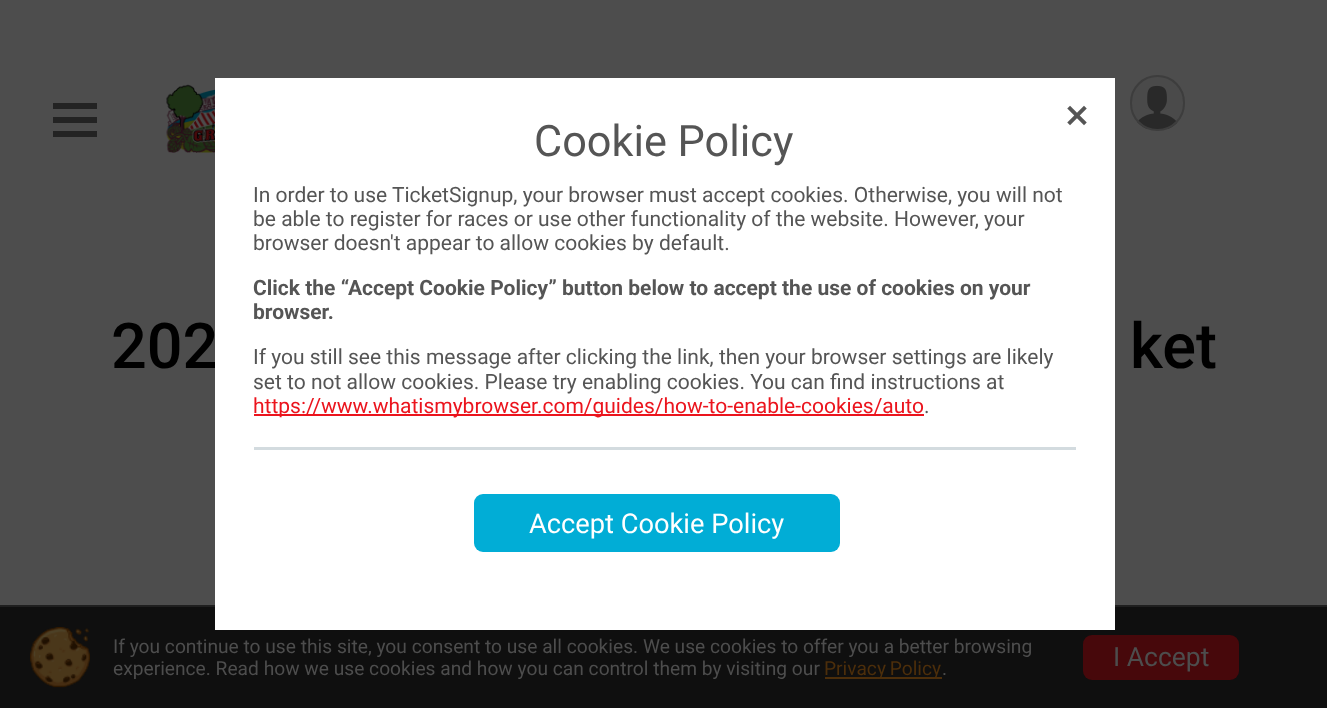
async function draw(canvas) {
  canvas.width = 1327
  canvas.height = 708
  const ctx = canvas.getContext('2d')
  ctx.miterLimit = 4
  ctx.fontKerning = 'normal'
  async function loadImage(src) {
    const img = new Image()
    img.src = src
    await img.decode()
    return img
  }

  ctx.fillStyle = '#4d4d4d'
  ctx.fillRect(0, 0, 1327, 708)
  ctx.font = '500 63px Roboto'
  ctx.fillStyle = '#000'
  ctx.fillText('202', 111, 368)
  ctx.fillStyle = '#0f0f0f'
  ctx.fillRect(0, 607, 1327, 101)
  ctx.fillStyle = '#1f1f1f'
  ctx.fillRect(0, 605, 1327, 2)
  ctx.strokeStyle = '#fff'
  ctx.lineWidth = 2
  ctx.strokeRect(216, 79, 898, 550)
  ctx.fillStyle = '#fff'
  ctx.fillRect(217, 80, 896, 548)
  ctx.drawImage(await loadImage('image0.png'), 1067, 105, 20, 21)
  ctx.font = '43.25px Roboto'
  ctx.fillStyle = '#555'
  ctx.fillText('Cookie Policy', 534, 156)
  ctx.font = '21px Roboto'
  ctx.fillText('In order to use TicketSignup, your browser must accept cookies. Otherwise, you will not', 253, 202)
  ctx.fillText('be able to register for races or use other functionality of the website. However, your', 253, 226)
  ctx.fillText('browser doesn\'t appear to allow cookies by default.', 253, 250)
  ctx.font = 'bold 21px Roboto'
  ctx.fillText('Click the “Accept Cookie Policy” button below to accept the use of cookies on your', 253, 295)
  ctx.fillText('browser.', 253, 319)
  ctx.font = '21px Roboto'
  ctx.fillText('If you still see this message after clicking the link, then your browser settings are likely', 253, 364)
  ctx.fillText('set to not allow cookies. Please try enabling cookies. You can find instructions at', 253, 389)
  ctx.fillStyle = '#eb141d'
  ctx.fillRect(254, 414, 670, 2)
  ctx.fillText('https://www.whatismybrowser.com/guides/how-to-enable-cookies/auto', 253, 413)
  ctx.fillStyle = '#555'
  ctx.fillText('.', 924, 413)
  ctx.fillStyle = '#d3dbdf'
  ctx.fillRect(254, 447, 822, 3)
  ctx.fillStyle = '#01add6'
  ctx.beginPath()
  ctx.roundRect(474, 494, 366, 58, 9)
  ctx.fill()
  ctx.font = '27.25px Roboto'
  ctx.fillStyle = '#fff'
  ctx.fillText('Accept Cookie Policy', 529, 533)
  ctx.fillStyle = '#232323'
  ctx.beginPath()
  ctx.moveTo(97, 103)
  ctx.lineTo(97, 109)
  ctx.lineTo(53, 109)
  ctx.lineTo(53, 103)
  ctx.closePath()
  ctx.moveTo(97, 117)
  ctx.lineTo(97, 123)
  ctx.lineTo(53, 123)
  ctx.lineTo(53, 117)
  ctx.closePath()
  ctx.moveTo(97, 131)
  ctx.lineTo(97, 137)
  ctx.lineTo(53, 137)
  ctx.lineTo(53, 131)
  ctx.closePath()
  ctx.fill()
  ctx.drawImage(await loadImage('image1.png'), 166, 84, 49, 69)
  ctx.drawImage(await loadImage('image2.png'), 1131, 77, 53, 52)
  ctx.beginPath()
  ctx.roundRect(1131, 76, 53, 54, 26.5)
  ctx.strokeStyle = '#3d3d3d'
  ctx.stroke()
  ctx.font = '500 63px Roboto'
  ctx.fillStyle = '#000'
  ctx.fillText('ket', 1130, 368)
  ctx.drawImage(await loadImage('image3.png'), 30, 627, 60, 61)
  ctx.font = '19.2px Roboto'
  ctx.fillStyle = '#4d4d4d'
  ctx.fillText('If you continue to use this site, you consent to use all cookies. We use cookies to offer you a better browsing', 113, 653)
  ctx.fillText('experience. Read how we use cookies and how you can control them by visiting our', 113, 675)
  ctx.fillStyle = '#4c2e0b'
  ctx.fillRect(825, 677, 117, 2)
  ctx.wordSpacing = '-1px'
  ctx.fillText('Privacy Policy', 824, 675)
  ctx.wordSpacing = '0px'
  ctx.fillStyle = '#4d4d4d'
  ctx.fillText('.', 942, 675)
  ctx.fillStyle = '#47080b'
  ctx.beginPath()
  ctx.roundRect(1083, 635, 156, 45, 9)
  ctx.fill()
  ctx.font = '26.5px Roboto'
  ctx.fillStyle = '#4d4d4d'
  ctx.fillText('I Accept', 1113, 666)
}

draw(document.querySelector('canvas'))
